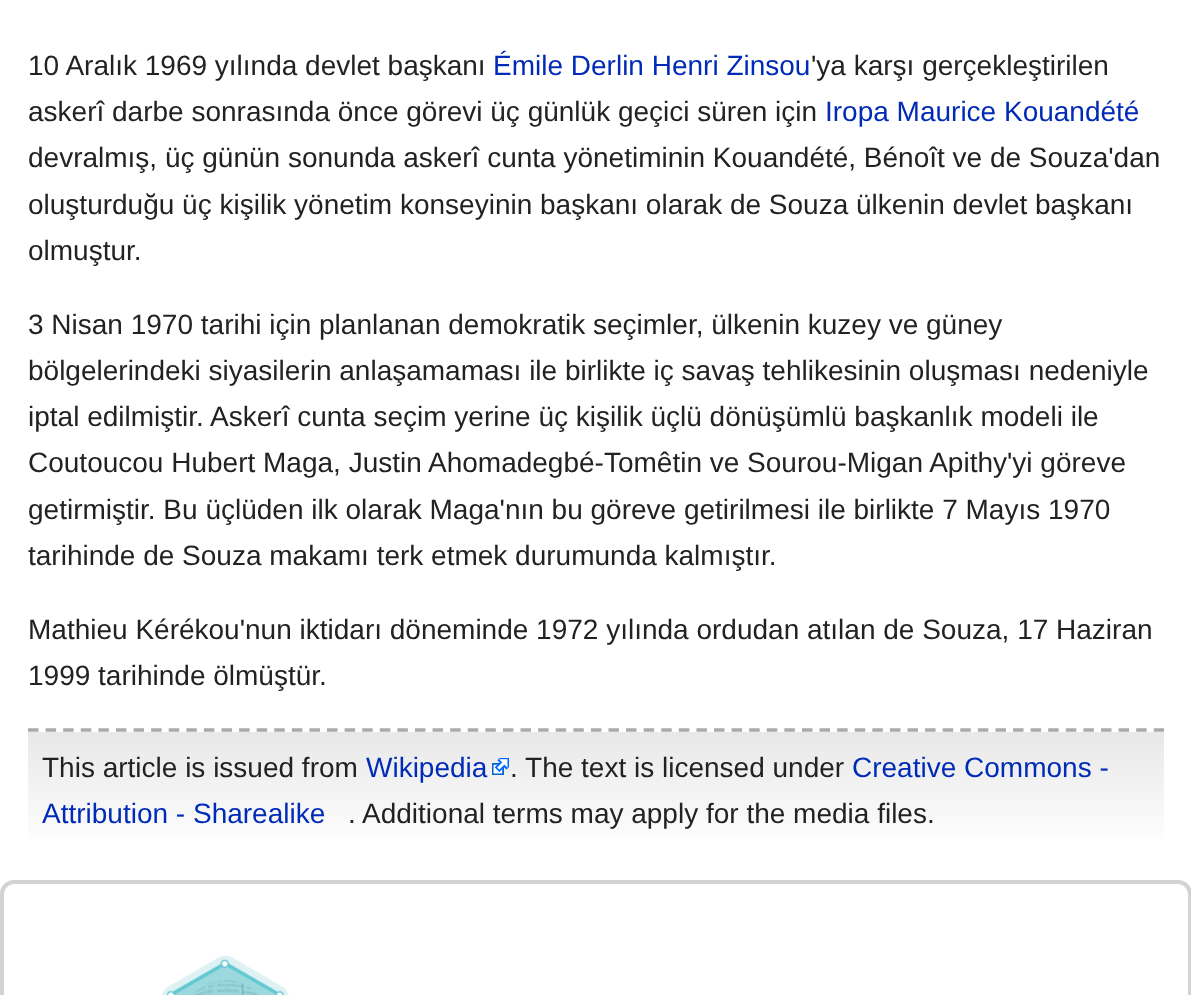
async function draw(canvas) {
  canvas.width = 1191
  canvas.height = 995
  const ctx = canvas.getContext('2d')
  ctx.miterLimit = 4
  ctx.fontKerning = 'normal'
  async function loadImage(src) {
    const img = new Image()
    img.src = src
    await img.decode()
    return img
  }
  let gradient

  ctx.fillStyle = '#fff'
  ctx.fillRect(0, 0, 1191, 995)
  ctx.font = '28px Liberation Sans'
  ctx.fillStyle = '#222'
  ctx.fillText('10 Aralık 1969 yılında devlet başkanı', 28, 75)
  ctx.fillStyle = '#002bb8'
  ctx.fillText('Émile Derlin Henri Zinsou', 493, 75)
  ctx.fillStyle = '#222'
  ctx.fillText('\'ya karşı gerçekleştirilen', 811, 75)
  ctx.fillText('askerî darbe sonrasında önce görevi üç günlük geçici süren için', 28, 121)
  ctx.fillStyle = '#002bb8'
  ctx.fillText('Iropa Maurice Kouandété', 825, 121)
  ctx.fillStyle = '#222'
  ctx.fillText('devralmış, üç günün sonunda askerî cunta yönetiminin Kouandété, Bénoît ve de Souza\'dan', 28, 167)
  ctx.fillText('oluşturduğu üç kişilik yönetim konseyinin başkanı olarak de Souza ülkenin devlet başkanı', 28, 214)
  ctx.fillText('olmuştur.', 28, 260)
  ctx.fillText('3 Nisan 1970 tarihi için planlanan demokratik seçimler, ülkenin kuzey ve güney', 28, 334)
  ctx.fillText('bölgelerindeki siyasilerin anlaşamaması ile birlikte iç savaş tehlikesinin oluşması nedeniyle', 28, 380)
  ctx.fillText('iptal edilmiştir. Askerî cunta seçim yerine üç kişilik üçlü dönüşümlü başkanlık modeli ile', 28, 426)
  ctx.fillText('Coutoucou Hubert Maga, Justin Ahomadegbé-Tomêtin ve Sourou-Migan Apithy\'yi göreve', 28, 472)
  ctx.fillText('getirmiştir. Bu üçlüden ilk olarak Maga\'nın bu göreve getirilmesi ile birlikte 7 Mayıs 1970', 28, 519)
  ctx.fillText('tarihinde de Souza makamı terk etmek durumunda kalmıştır.', 28, 565)
  ctx.fillText('Mathieu Kérékou\'nun iktidarı döneminde 1972 yılında ordudan atılan de Souza, 17 Haziran', 28, 639)
  ctx.fillText('1999 tarihinde ölmüştür.', 28, 685)
  gradient = ctx.createLinearGradient(596, 731, 596, 852)
  gradient.addColorStop(0, '#e8e8e8')
  gradient.addColorStop(1, '#fff')
  ctx.fillStyle = gradient
  ctx.fillRect(28, 732, 1136, 107)
  ctx.beginPath()
  ctx.moveTo(28, 730)
  ctx.lineTo(1164, 730)
  ctx.strokeStyle = '#aaa'
  ctx.lineWidth = 3.5
  ctx.setLineDash([10.5, 7.09])
  ctx.stroke()
  ctx.fillStyle = '#222'
  ctx.fillText('This article is issued from', 42, 777)
  ctx.fillStyle = '#002bb8'
  ctx.fillText('Wikipedia', 366, 777)
  ctx.drawImage(await loadImage('image0.png'), 492, 758, 17, 17)
  ctx.fillStyle = '#222'
  ctx.fillText('. The text is licensed under', 510, 777)
  ctx.fillStyle = '#002bb8'
  ctx.fillText('Creative Commons -', 852, 777)
  ctx.fillText('Attribution - Sharealike', 42, 823)
  ctx.fillStyle = '#222'
  ctx.fillText('. Additional terms may apply for the media files.', 348, 823)
  ctx.beginPath()
  ctx.roundRect(2, 882, 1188, 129, 12)
  ctx.strokeStyle = '#d3d3d3'
  ctx.lineWidth = 4
  ctx.setLineDash([])
  ctx.stroke()
  ctx.drawImage(await loadImage('image1.png'), 162, 955, 127, 40)
}

draw(document.querySelector('canvas'))
